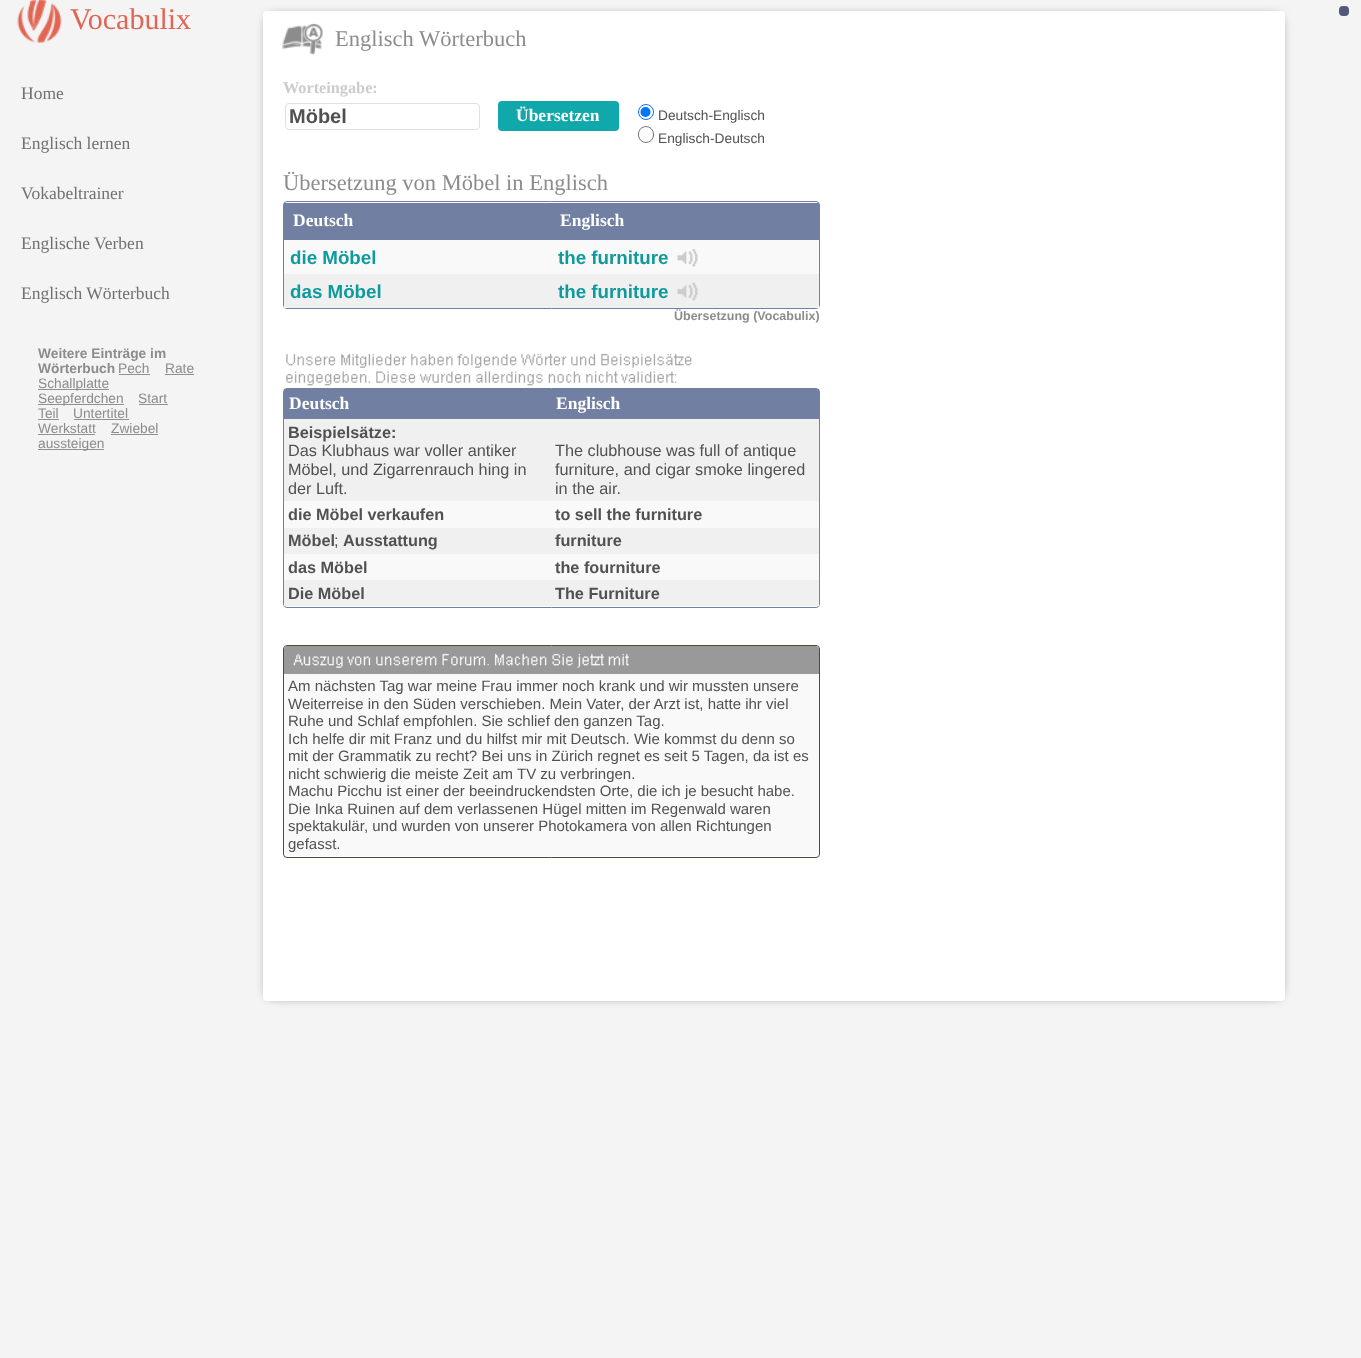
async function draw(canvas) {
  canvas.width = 1361
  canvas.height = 1358
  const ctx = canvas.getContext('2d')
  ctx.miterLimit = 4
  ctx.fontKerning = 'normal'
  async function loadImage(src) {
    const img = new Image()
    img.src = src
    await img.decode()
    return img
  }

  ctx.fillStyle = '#f4f4f4'
  ctx.fillRect(0, 0, 1361, 1358)
  ctx.drawImage(await loadImage('image0.png'), 17, 0, 45, 43)
  ctx.font = '30px Liberation Serif'
  ctx.fillStyle = '#e26553'
  ctx.fillText('Vocabulix', 70, 29)
  ctx.font = '17.5px Liberation Serif'
  ctx.fillStyle = '#717171'
  ctx.fillText('Home', 21, 99)
  ctx.fillText('Englisch lernen', 21, 149)
  ctx.fillText('Vokabeltrainer', 21, 199)
  ctx.fillText('Englische Verben', 21, 249)
  ctx.fillText('Englisch Wörterbuch', 21, 299)
  ctx.fillStyle = '#50587c'
  ctx.beginPath()
  ctx.roundRect(1339, 6, 10, 10, 4)
  ctx.fill()
  ctx.fillStyle = '#333'
  ctx.filter = 'blur(6px)'
  ctx.beginPath()
  ctx.rect(269, 18, 1010, 977)
  ctx.fill()
  ctx.filter = 'none'
  ctx.fillStyle = '#fff'
  ctx.beginPath()
  ctx.roundRect(263, 11, 1022, 990, 4)
  ctx.fill()
  ctx.drawImage(await loadImage('image1.png'), 282, 23, 41, 32)
  ctx.font = '22.5px Liberation Serif'
  ctx.fillStyle = '#8c8c8c'
  ctx.fillText('Englisch Wörterbuch', 335, 46)
  ctx.font = 'bold 16.25px Liberation Serif'
  ctx.fillStyle = '#ccc'
  ctx.fillText('Worteingabe:', 283, 93)
  ctx.beginPath()
  ctx.roundRect(285.5, 103.5, 194, 26, 3.5)
  ctx.strokeStyle = '#e0e0e0'
  ctx.stroke()
  ctx.font = 'bold 20px Liberation Sans'
  ctx.fillStyle = '#515151'
  ctx.fillText('Möbel', 289, 123)
  ctx.fillStyle = '#10a8ab'
  ctx.beginPath()
  ctx.roundRect(498, 101, 121, 30, 4)
  ctx.fill()
  ctx.font = 'bold 17.5px Liberation Serif'
  ctx.fillStyle = '#fff'
  ctx.fillText('Übersetzen', 516, 121)
  ctx.beginPath()
  ctx.arc(646, 112, 7.5, 0, 2 * Math.PI)
  ctx.strokeStyle = '#0075ff'
  ctx.stroke()
  ctx.fillStyle = '#0075ff'
  ctx.beginPath()
  ctx.arc(645.5, 112, 5, 0, 2 * Math.PI)
  ctx.fill()
  ctx.font = '13.75px Liberation Sans'
  ctx.fillStyle = '#515151'
  ctx.fillText('Deutsch-Englisch', 658, 120)
  ctx.beginPath()
  ctx.roundRect(638.5, 126.5, 15, 16, 7.5)
  ctx.strokeStyle = '#767676'
  ctx.stroke()
  ctx.fillText('Englisch-Deutsch', 658, 143)
  ctx.font = '22.5px Liberation Serif'
  ctx.fillStyle = '#8c8c8c'
  ctx.fillText('Übersetzung von Möbel in Englisch', 283, 190)
  ctx.beginPath()
  ctx.roundRect(283.5, 201.5, 536, 107, 3.5)
  ctx.strokeStyle = '#717fa2'
  ctx.stroke()
  ctx.fillStyle = '#717fa2'
  ctx.fillRect(284, 203, 535, 37)
  ctx.font = 'bold 17.5px Liberation Serif'
  ctx.fillStyle = '#fff'
  ctx.fillText('Deutsch', 293, 226)
  ctx.fillText('Englisch', 560, 226)
  ctx.fillStyle = '#f9f9f9'
  ctx.fillRect(284, 240, 535, 34)
  ctx.font = 'bold 18.75px Liberation Sans'
  ctx.fillStyle = '#0f9a9d'
  ctx.fillText('die Möbel', 290, 264)
  ctx.fillText('the furniture', 558, 264)
  ctx.drawImage(await loadImage('image2.png'), 677, 249, 21, 18)
  ctx.fillStyle = '#f0f0f0'
  ctx.fillRect(284, 274, 535, 34)
  ctx.fillStyle = '#0f9a9d'
  ctx.fillText('das Möbel', 290, 298)
  ctx.fillText('the furniture', 558, 298)
  ctx.drawImage(await loadImage('image3.png'), 677, 282, 21, 19)
  ctx.font = 'bold 12.5px Liberation Sans'
  ctx.fillStyle = '#8c8c8c'
  ctx.fillText('Übersetzung (Vocabulix)', 674, 320)
  ctx.drawImage(await loadImage('image4.png'), 286, 353, 406, 33)
  ctx.font = 'bold 13.75px Liberation Sans'
  ctx.fillText('Weitere Einträge im', 38, 358)
  ctx.fillText('Wörterbuch', 38, 373)
  ctx.font = '13.75px Liberation Sans'
  ctx.fillText('Pech', 118, 373)
  ctx.fillStyle = '#919191'
  ctx.fillRect(119, 374, 31, 1)
  ctx.fillStyle = '#8c8c8c'
  ctx.fillText('Rate', 165, 373)
  ctx.fillStyle = '#919191'
  ctx.fillRect(165, 374, 29, 1)
  ctx.fillRect(38, 389, 71, 1)
  ctx.fillStyle = '#8c8c8c'
  ctx.fillText('Schallplatte', 38, 388)
  ctx.fillStyle = '#919191'
  ctx.fillRect(38, 404, 86, 1)
  ctx.fillStyle = '#8c8c8c'
  ctx.fillText('Seepferdchen', 38, 403)
  ctx.fillText('Start', 138, 403)
  ctx.fillStyle = '#919191'
  ctx.fillRect(139, 404, 29, 1)
  ctx.fillStyle = '#8c8c8c'
  ctx.fillText('Teil', 38, 418)
  ctx.fillStyle = '#919191'
  ctx.fillRect(38, 419, 21, 1)
  ctx.fillStyle = '#8c8c8c'
  ctx.fillText('Untertitel', 73, 418)
  ctx.fillStyle = '#919191'
  ctx.fillRect(74, 419, 55, 1)
  ctx.fillStyle = '#8c8c8c'
  ctx.fillText('Werkstatt', 38, 433)
  ctx.fillStyle = '#919191'
  ctx.fillRect(38, 434, 57, 1)
  ctx.fillStyle = '#8c8c8c'
  ctx.fillText('Zwiebel', 111, 433)
  ctx.fillStyle = '#919191'
  ctx.fillRect(111, 434, 47, 1)
  ctx.fillRect(38, 449, 66, 1)
  ctx.fillStyle = '#8c8c8c'
  ctx.fillText('aussteigen', 38, 448)
  ctx.beginPath()
  ctx.roundRect(283.5, 388.5, 536, 219, 3.5)
  ctx.stroke()
  ctx.fillStyle = '#717fa2'
  ctx.fillRect(284, 389, 535, 30)
  ctx.font = 'bold 17.5px Liberation Serif'
  ctx.fillStyle = '#fff'
  ctx.fillText('Deutsch', 289, 409)
  ctx.fillText('Englisch', 556, 409)
  ctx.fillStyle = '#f0f0f0'
  ctx.fillRect(284, 419, 535, 82)
  ctx.font = 'bold 16.25px Liberation Sans'
  ctx.fillStyle = '#515151'
  ctx.fillText('Beispielsätze:', 288, 438)
  ctx.font = '16.25px Liberation Sans'
  ctx.fillText('Das Klubhaus war voller antiker', 288, 456)
  ctx.fillText('Möbel, und Zigarrenrauch hing in', 288, 475)
  ctx.fillText('der Luft.', 288, 494)
  ctx.fillText('The clubhouse was full of antique', 555, 456)
  ctx.fillText('furniture, and cigar smoke lingered', 555, 475)
  ctx.fillText('in the air.', 555, 494)
  ctx.fillStyle = '#f9f9f9'
  ctx.fillRect(284, 501, 535, 27)
  ctx.font = 'bold 16.25px Liberation Sans'
  ctx.fillStyle = '#515151'
  ctx.fillText('die Möbel verkaufen', 288, 520)
  ctx.fillText('to sell the furniture', 555, 520)
  ctx.fillStyle = '#f0f0f0'
  ctx.fillRect(284, 528, 535, 26)
  ctx.fillStyle = '#515151'
  ctx.fillText('Möbel', 288, 546)
  ctx.font = '16.25px Liberation Sans'
  ctx.fillText(';', 334, 546)
  ctx.font = 'bold 16.25px Liberation Sans'
  ctx.fillText('Ausstattung', 343, 546)
  ctx.fillText('furniture', 555, 546)
  ctx.fillStyle = '#f9f9f9'
  ctx.fillRect(284, 554, 535, 26)
  ctx.fillStyle = '#515151'
  ctx.fillText('das Möbel', 288, 573)
  ctx.fillText('the fourniture', 555, 573)
  ctx.fillStyle = '#f0f0f0'
  ctx.fillRect(284, 580, 535, 26)
  ctx.fillStyle = '#515151'
  ctx.fillText('Die Möbel', 288, 599)
  ctx.fillText('The Furniture', 555, 599)
  ctx.beginPath()
  ctx.roundRect(283.5, 645.5, 536, 212, 3.5)
  ctx.strokeStyle = '#425231'
  ctx.stroke()
  ctx.fillStyle = '#999'
  ctx.beginPath()
  ctx.roundRect(284, 646, 535, 28, [2.5, 2.5, 0, 0])
  ctx.fill()
  ctx.drawImage(await loadImage('image5.png'), 293, 653, 336, 15)
  ctx.fillStyle = '#f9f9f9'
  ctx.beginPath()
  ctx.roundRect(284, 674, 535, 182, 4)
  ctx.fill()
  ctx.font = '15px Liberation Sans'
  ctx.fillStyle = '#515151'
  ctx.fillText('Am nächsten Tag war meine Frau immer noch krank und wir mussten unsere', 288, 691)
  ctx.fillText('Weiterreise in den Süden verschieben. Mein Vater, der Arzt ist, hatte ihr viel', 288, 709)
  ctx.fillText('Ruhe und Schlaf empfohlen. Sie schlief den ganzen Tag.', 288, 726)
  ctx.fillText('Ich helfe dir mit Franz und du hilfst mir mit Deutsch. Wie kommst du denn so', 288, 744)
  ctx.fillText('mit der Grammatik zu recht? Bei uns in Zürich regnet es seit 5 Tagen, da ist es', 288, 761)
  ctx.fillText('nicht schwierig die meiste Zeit am TV zu verbringen.', 288, 779)
  ctx.fillText('Machu Picchu ist einer der beeindruckendsten Orte, die ich je besucht habe.', 288, 796)
  ctx.fillText('Die Inka Ruinen auf dem verlassenen Hügel mitten im Regenwald waren', 288, 814)
  ctx.fillText('spektakulär, und wurden von unserer Photokamera von allen Richtungen', 288, 831)
  ctx.fillText('gefasst.', 288, 849)
}

draw(document.querySelector('canvas'))
